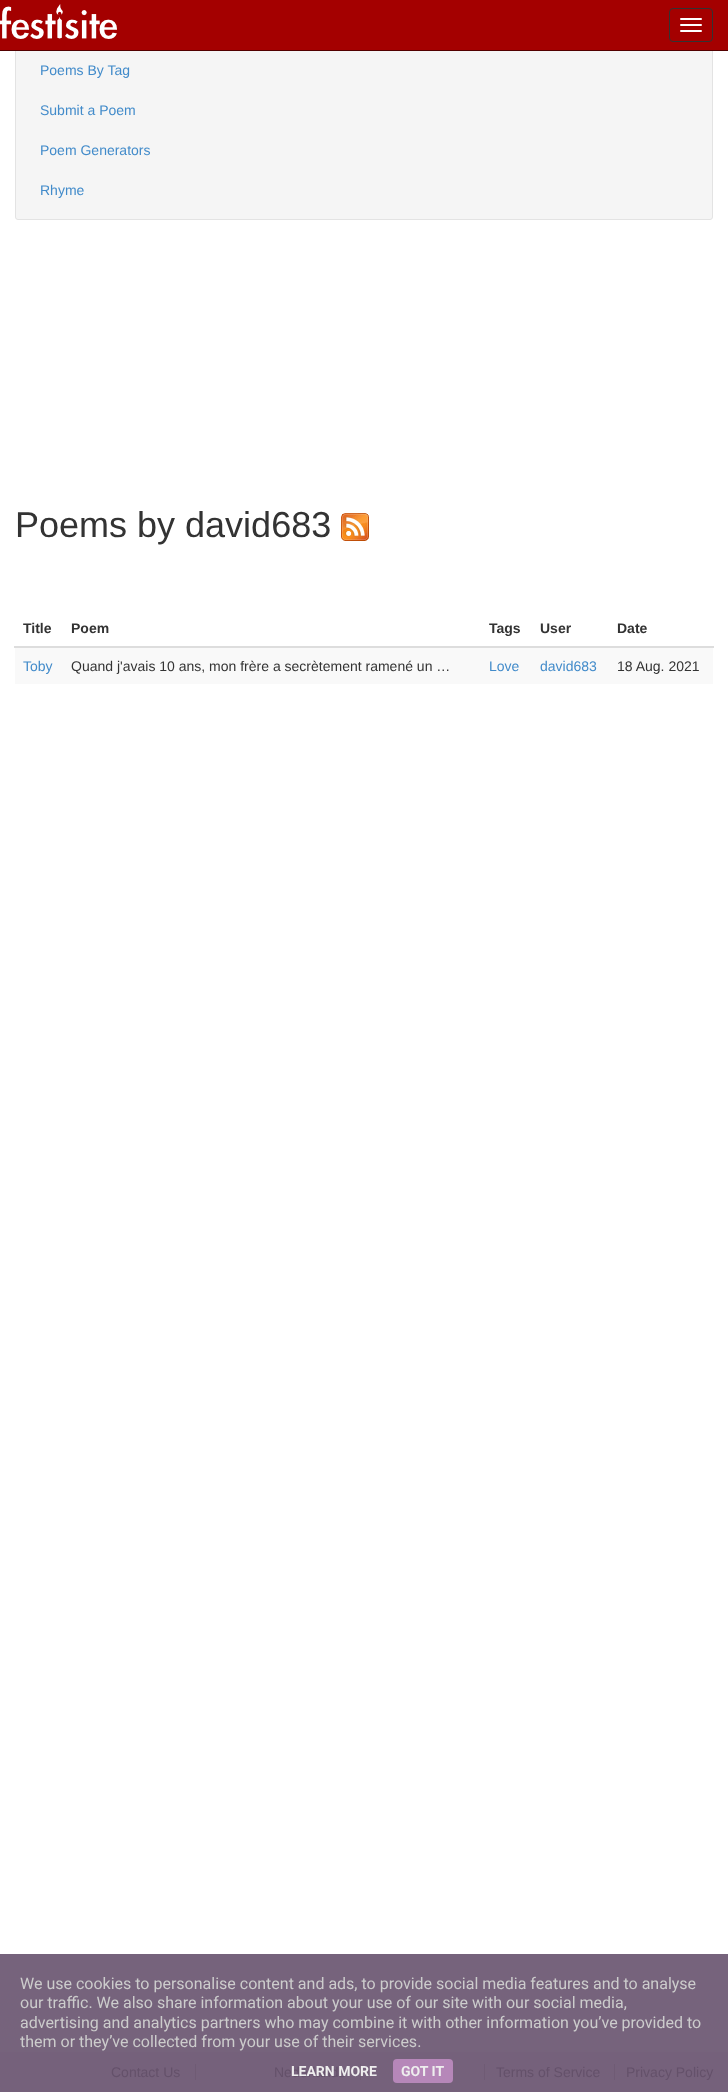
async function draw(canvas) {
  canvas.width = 728
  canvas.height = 2092
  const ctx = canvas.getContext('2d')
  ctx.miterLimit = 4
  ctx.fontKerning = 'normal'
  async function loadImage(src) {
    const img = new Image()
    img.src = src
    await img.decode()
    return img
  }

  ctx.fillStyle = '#fff'
  ctx.fillRect(0, 0, 728, 2092)
  ctx.fillStyle = '#76637c'
  ctx.fillRect(0, 1954, 728, 98)
  ctx.fillStyle = '#f5f5f5'
  ctx.beginPath()
  ctx.roundRect(15.5, 0.5, 697, 219, 2.5)
  ctx.fill()
  ctx.strokeStyle = '#e3e3e3'
  ctx.stroke()
  ctx.fillStyle = '#a40000'
  ctx.fillRect(0, 0, 728, 50)
  ctx.fillStyle = '#520000'
  ctx.fillRect(0, 50, 728, 1)
  ctx.drawImage(await loadImage('image0.png'), 0, 4, 117, 35)
  ctx.beginPath()
  ctx.roundRect(669.5, 8.5, 43, 33, 3.5)
  ctx.strokeStyle = '#333'
  ctx.stroke()
  ctx.fillStyle = '#fff'
  ctx.beginPath()
  ctx.roundRect(680, 18, 22, 2, 1)
  ctx.fill()
  ctx.beginPath()
  ctx.roundRect(680, 24, 22, 2, 1)
  ctx.fill()
  ctx.beginPath()
  ctx.roundRect(680, 30, 22, 2, 1)
  ctx.fill()
  ctx.font = '14px Liberation Sans'
  ctx.fillStyle = '#428bca'
  ctx.fillText('Poems By Tag', 40, 75)
  ctx.fillText('Submit a Poem', 40, 115)
  ctx.fillText('Poem Generators', 40, 155)
  ctx.fillText('Rhyme', 40, 195)
  ctx.font = '36px Liberation Sans'
  ctx.fillStyle = '#333'
  ctx.fillText('Poems by david683', 15, 537)
  ctx.drawImage(await loadImage('image1.png'), 341, 513, 28, 28)
  ctx.font = 'bold 14px Liberation Sans'
  ctx.fillText('Title', 23, 633)
  ctx.fillText('Poem', 71, 633)
  ctx.fillText('Tags', 489, 633)
  ctx.fillText('User', 540, 633)
  ctx.fillStyle = '#ddd'
  ctx.fillRect(14, 646, 700, 2)
  ctx.fillStyle = '#333'
  ctx.fillText('Date', 617, 633)
  ctx.fillStyle = '#f9f9f9'
  ctx.fillRect(15, 648, 698, 36)
  ctx.font = '14px Liberation Sans'
  ctx.fillStyle = '#428bca'
  ctx.fillText('Toby', 23, 671)
  ctx.fillStyle = '#333'
  ctx.fillText('Quand j\'avais 10 ans, mon frère a secrètement ramené un …', 71, 671)
  ctx.fillStyle = '#428bca'
  ctx.fillText('Love', 489, 671)
  ctx.fillText('david683', 540, 671)
  ctx.fillStyle = '#333'
  ctx.fillText('18 Aug. 2021', 617, 671)
  ctx.font = '16px Roboto'
  ctx.fillStyle = '#ccc'
  ctx.fillText('We use cookies to personalise content and ads, to provide social media features and to analyse', 20, 1989)
  ctx.fillText('our traffic. We also share information about your use of our site with our social media,', 20, 2008)
  ctx.fillText('advertising and analytics partners who may combine it with other information you’ve provided to', 20, 2028)
  ctx.fillText('them or they’ve collected from your use of their services.', 20, 2047)
  ctx.fillStyle = '#75617b'
  ctx.fillRect(0, 2052, 728, 40)
  ctx.fillStyle = '#6f5b74'
  ctx.fillRect(360, 2064, 1, 16)
  ctx.font = '14px Liberation Sans'
  ctx.fillStyle = '#64516a'
  ctx.fillText('Nederlands', 274, 2077)
  ctx.font = 'bold 14px Roboto'
  ctx.fillStyle = '#eee'
  ctx.fillText('LEARN MORE', 291, 2076)
  ctx.fillStyle = '#b687b9'
  ctx.beginPath()
  ctx.roundRect(393, 2059, 60, 24, 4)
  ctx.fill()
  ctx.fillStyle = '#eee'
  ctx.fillText('GOT IT', 401, 2076)
  ctx.font = '14px Liberation Sans'
  ctx.fillStyle = '#64516a'
  ctx.fillText('Contact Us', 111, 2077)
  ctx.fillStyle = '#6f5b74'
  ctx.fillRect(195, 2064, 1, 16)
  ctx.fillRect(484, 2064, 1, 16)
  ctx.fillStyle = '#64516a'
  ctx.fillText('Terms of Service', 496, 2077)
  ctx.fillStyle = '#6f5b74'
  ctx.fillRect(614, 2064, 1, 16)
  ctx.fillStyle = '#64516a'
  ctx.fillText('Privacy Policy', 626, 2077)
}

draw(document.querySelector('canvas'))
